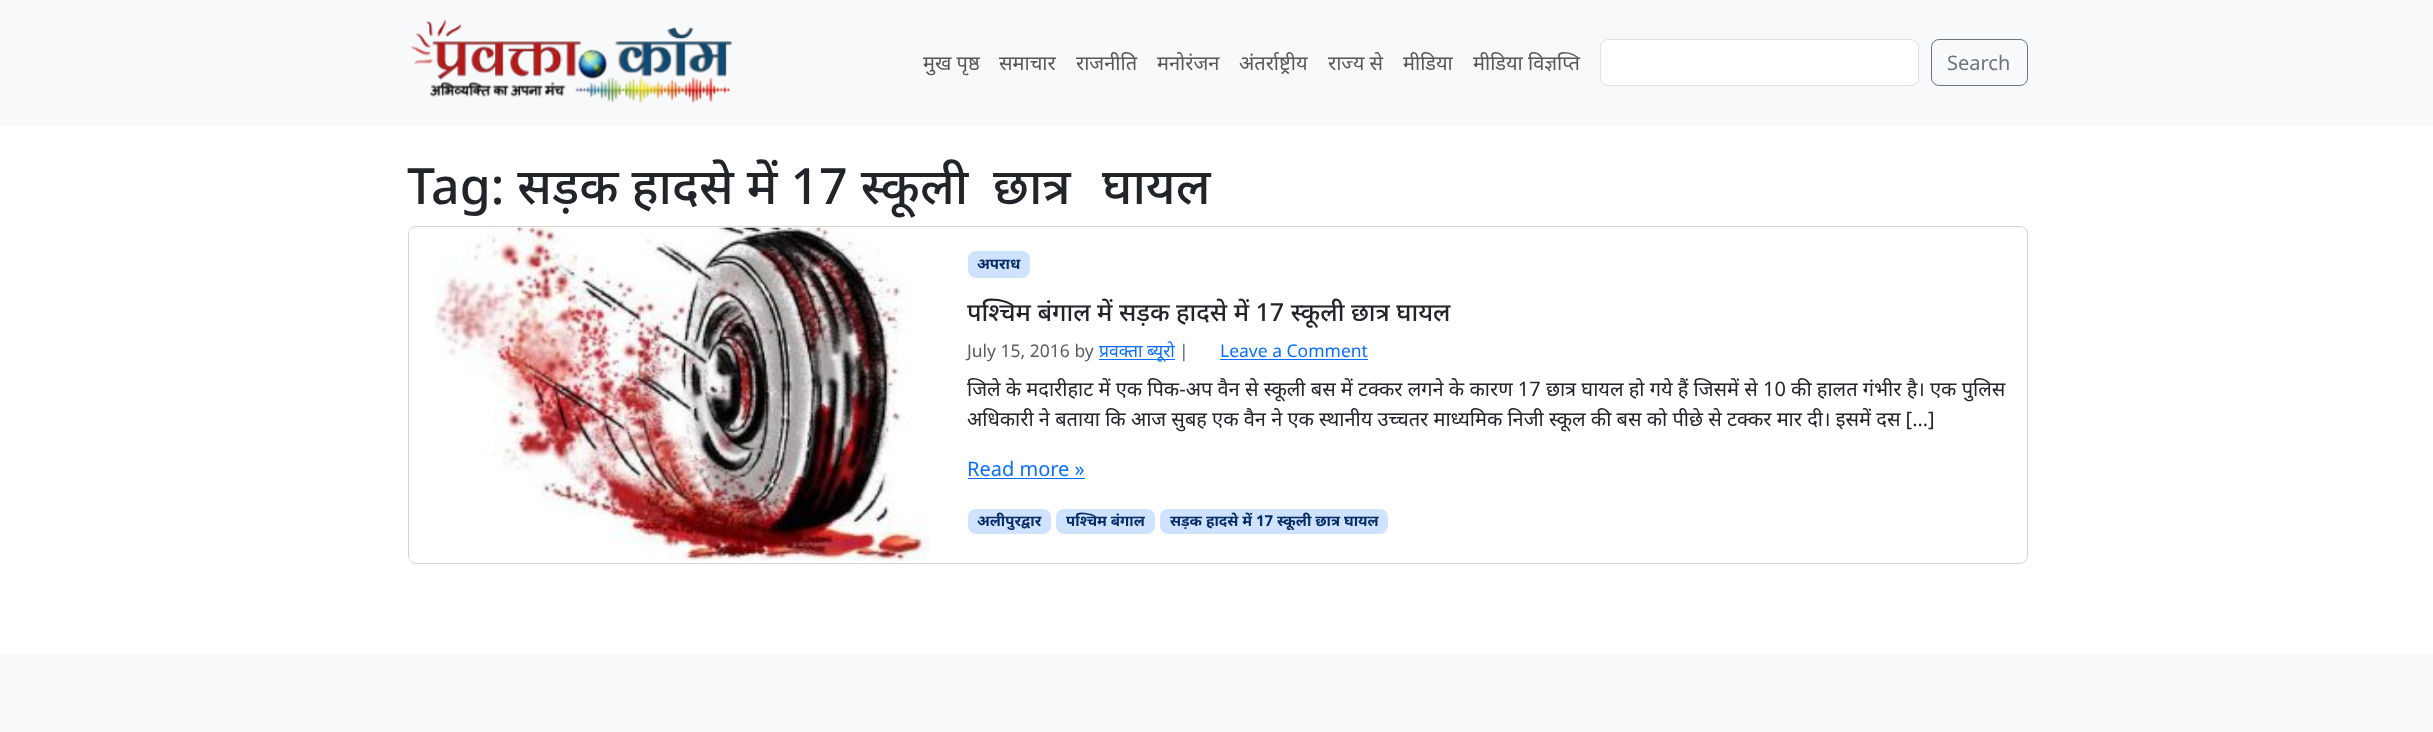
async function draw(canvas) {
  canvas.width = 2433
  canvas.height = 732
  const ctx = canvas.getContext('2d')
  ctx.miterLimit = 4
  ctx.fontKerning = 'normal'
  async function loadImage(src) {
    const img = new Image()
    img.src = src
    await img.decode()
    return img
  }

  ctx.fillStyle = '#fff'
  ctx.fillRect(0, 0, 2433, 732)
  ctx.fillStyle = '#f8f9fa'
  ctx.fillRect(0, 0, 2433, 126)
  ctx.drawImage(await loadImage('image0.png'), 410, 19, 323, 84)
  ctx.font = '20px Noto Sans'
  ctx.fillStyle = '#575758'
  ctx.fillText('मुख पृष्ठ', 923, 70)
  ctx.fillText('समाचार', 999, 70)
  ctx.fillText('राजनीति', 1076, 70)
  ctx.fillText('मनोरंजन', 1157, 70)
  ctx.fillText('अंतर्राष्ट्रीय', 1239, 70)
  ctx.fillText('राज्य से', 1328, 70)
  ctx.fillText('मीडिया', 1403, 70)
  ctx.fillText('मीडिया विज्ञप्ति', 1473, 70)
  ctx.fillStyle = '#fff'
  ctx.beginPath()
  ctx.roundRect(1601, 40, 317, 45, 6)
  ctx.fill()
  ctx.beginPath()
  ctx.roundRect(1600.5, 39.5, 318, 46, 7.5)
  ctx.strokeStyle = '#dee2e6'
  ctx.stroke()
  ctx.beginPath()
  ctx.roundRect(1931.5, 39.5, 96, 46, 7.5)
  ctx.strokeStyle = '#6c757d'
  ctx.stroke()
  ctx.fillStyle = '#6c757d'
  ctx.fillText('Search', 1947, 70)
  ctx.font = '500 50px Noto Sans'
  ctx.fillStyle = '#212529'
  ctx.fillText('Tag: सड़क हादसे में 17 स्कूली', 407, 204)
  ctx.fillText('छात्र', 993, 204)
  ctx.fillText('घायल', 1102, 204)
  ctx.beginPath()
  ctx.roundRect(408.5, 226.5, 1619, 337, 7.5)
  ctx.strokeStyle = '#d2d2d2'
  ctx.stroke()
  ctx.drawImage(await loadImage('image1.png'), 409, 227, 521, 336)
  ctx.fillStyle = '#cfe2ff'
  ctx.beginPath()
  ctx.roundRect(968, 251, 62, 27, 8)
  ctx.fill()
  ctx.font = 'bold 15px Noto Sans'
  ctx.fillStyle = '#052c65'
  ctx.fillText('अपराध', 977, 269)
  ctx.font = '500 25px Noto Sans'
  ctx.fillStyle = '#212529'
  ctx.fillText('पश्चिम बंगाल में सड़क हादसे में 17 स्कूली छात्र घायल', 967, 321)
  ctx.font = '17.5px Noto Sans'
  ctx.fillStyle = '#595c5f'
  ctx.fillText('July 15, 2016 by', 967, 357)
  ctx.fillStyle = '#0d6efd'
  ctx.fillRect(1099, 359, 76, 1)
  ctx.fillText('प्रवक्‍ता ब्यूरो', 1099, 357)
  ctx.fillStyle = '#595c5f'
  ctx.fillText('|', 1179, 357)
  ctx.fillStyle = '#0d6efd'
  ctx.fillText('Leave a Comment', 1220, 357)
  ctx.fillRect(1220, 359, 148, 1)
  ctx.font = '20px Noto Sans'
  ctx.fillStyle = '#212529'
  ctx.fillText('जिले के मदारीहाट में एक पिक-अप वैन से स्कूली बस में टक्कर लगने के कारण 17 छात्र घायल हो गये हैं जिसमें से 10 की हालत गंभीर है। एक पुलिस', 967, 396)
  ctx.fillText('अधिकारी ने बताया कि आज सुबह एक वैन ने एक स्थानीय उच्चतर माध्यमिक निजी स्कूल की बस को पीछे से टक्कर मार दी। इसमें दस […]', 967, 426)
  ctx.fillStyle = '#0d6efd'
  ctx.fillText('Read more »', 967, 476)
  ctx.fillRect(968, 478, 117, 1)
  ctx.fillStyle = '#cfe2ff'
  ctx.beginPath()
  ctx.roundRect(968, 509, 83, 25, 8)
  ctx.fill()
  ctx.font = 'bold 15px Noto Sans'
  ctx.fillStyle = '#052c65'
  ctx.fillText('अलीपुरद्वार', 977, 526)
  ctx.fillStyle = '#cfe2ff'
  ctx.beginPath()
  ctx.roundRect(1056, 509, 99, 25, 8)
  ctx.fill()
  ctx.fillStyle = '#052c65'
  ctx.fillText('पश्चिम बंगाल', 1066, 526)
  ctx.fillStyle = '#cfe2ff'
  ctx.beginPath()
  ctx.roundRect(1160, 509, 228, 25, 8)
  ctx.fill()
  ctx.fillStyle = '#052c65'
  ctx.fillText('सड़क हादसे में 17 स्कूली छात्र घायल', 1170, 526)
  ctx.fillStyle = '#f8f9fa'
  ctx.fillRect(0, 654, 2433, 78)
}

draw(document.querySelector('canvas'))
